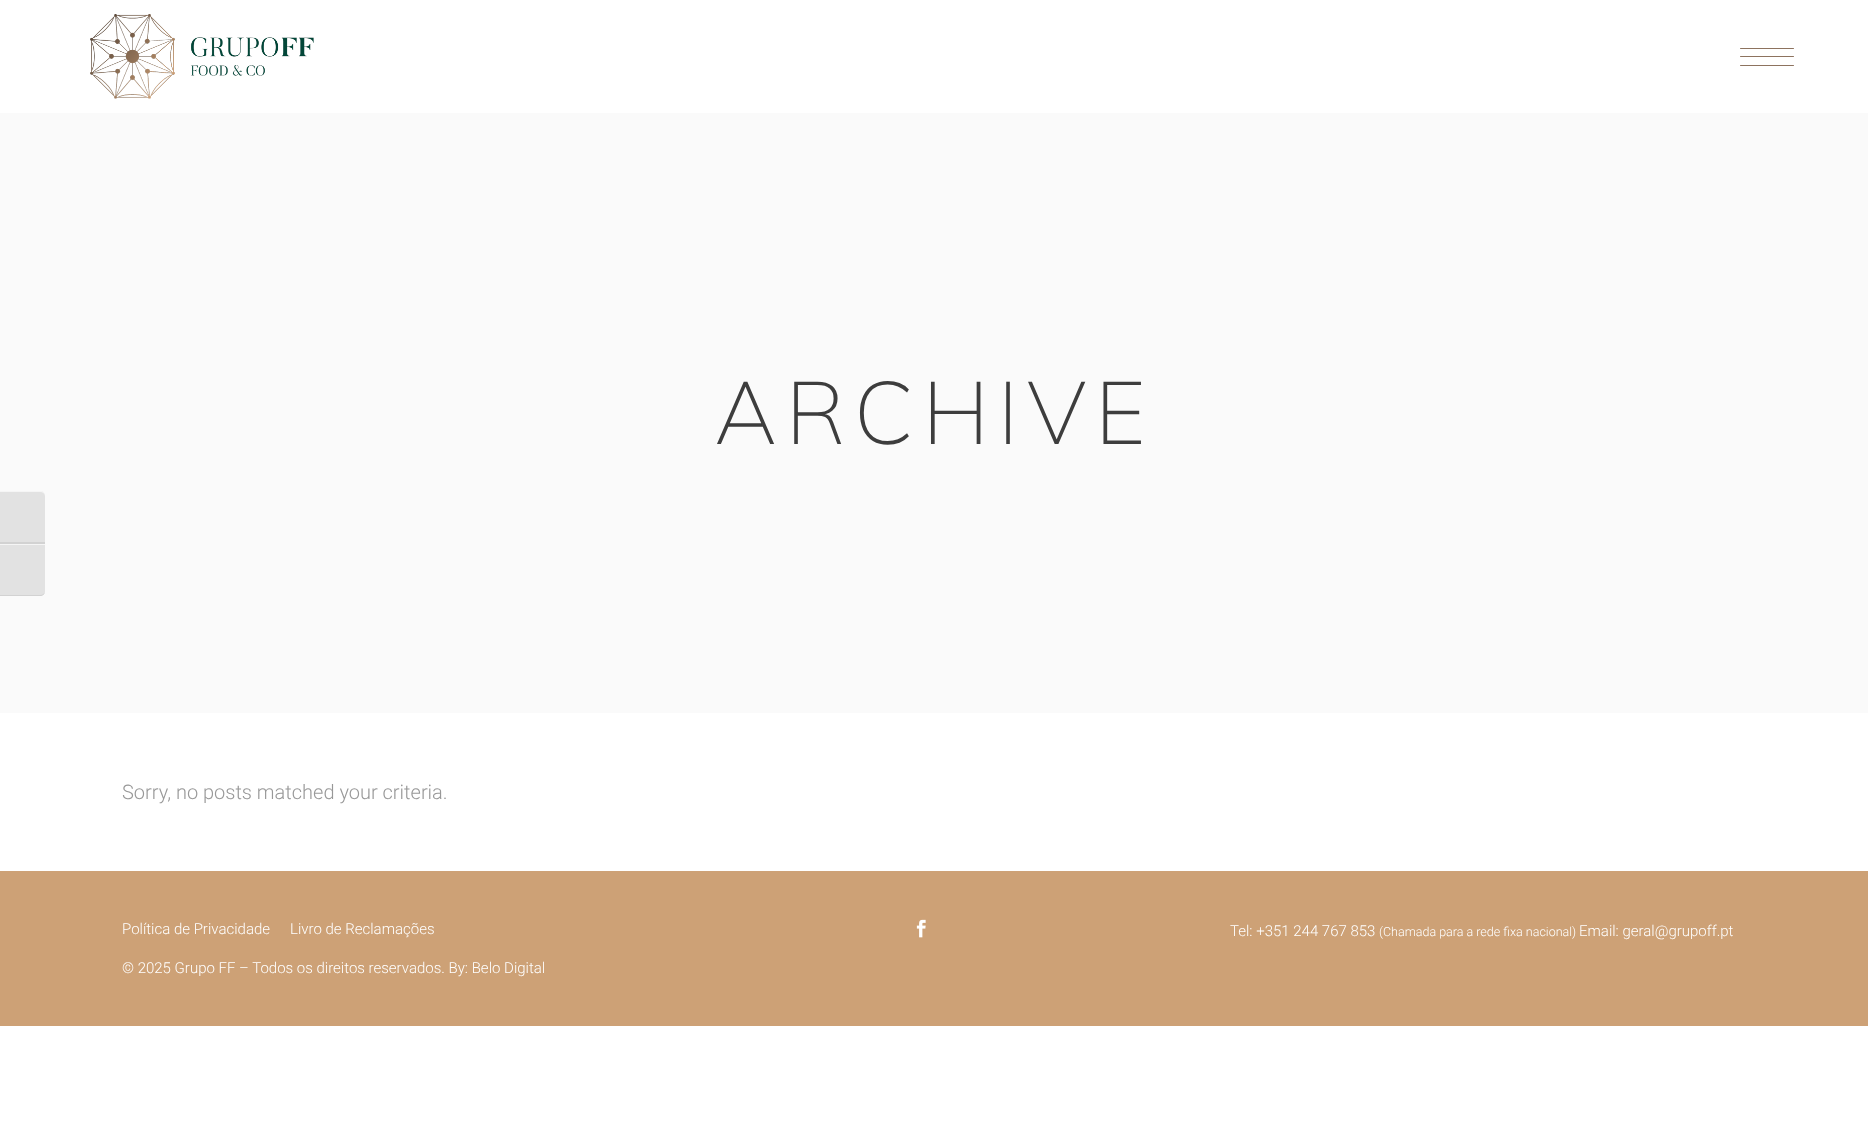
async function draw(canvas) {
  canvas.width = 1868
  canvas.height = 1143
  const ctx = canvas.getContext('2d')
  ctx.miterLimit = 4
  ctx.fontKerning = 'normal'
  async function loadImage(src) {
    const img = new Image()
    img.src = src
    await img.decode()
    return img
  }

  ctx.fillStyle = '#fff'
  ctx.fillRect(0, 0, 1868, 1143)
  ctx.fillStyle = '#fafafa'
  ctx.fillRect(0, 113, 1868, 600)
  ctx.fillStyle = '#e2e2e2'
  ctx.beginPath()
  ctx.roundRect(0, 491, 45, 53, [0, 5, 0, 0])
  ctx.fill()
  ctx.fillStyle = '#f5f5f5'
  ctx.beginPath()
  ctx.moveTo(0, 492)
  ctx.lineTo(40, 492)
  ctx.bezierCurveTo(43, 492, 45, 494, 45, 496)
  ctx.bezierCurveTo(45, 494, 44, 492, 42, 491)
  ctx.lineTo(0, 491)
  ctx.closePath()
  ctx.fill()
  ctx.fillStyle = '#d2d2d2'
  ctx.fillRect(0, 542, 45, 2)
  ctx.fillStyle = '#e2e2e2'
  ctx.beginPath()
  ctx.roundRect(0, 544, 45, 52, [0, 0, 5, 0])
  ctx.fill()
  ctx.fillStyle = '#f5f5f5'
  ctx.fillRect(0, 544, 45, 1)
  ctx.fillStyle = '#d2d2d2'
  ctx.beginPath()
  ctx.moveTo(0, 595)
  ctx.lineTo(0, 596)
  ctx.lineTo(40, 596)
  ctx.bezierCurveTo(43, 596, 45, 594, 45, 591)
  ctx.bezierCurveTo(45, 593, 43, 595, 40, 595)
  ctx.closePath()
  ctx.fill()
  ctx.drawImage(await loadImage('image0.png'), 90, 14, 224, 85)
  ctx.fillStyle = '#8d735f'
  ctx.beginPath()
  ctx.roundRect(1740, 48, 54, 1, 0.5)
  ctx.fill()
  ctx.beginPath()
  ctx.roundRect(1740, 56, 54, 1, 0.5)
  ctx.fill()
  ctx.beginPath()
  ctx.roundRect(1740, 65, 54, 1, 0.5)
  ctx.fill()
  ctx.letterSpacing = '8.75px'
  ctx.font = '200 87.5px Muli'
  ctx.fillStyle = '#3d3d3d'
  ctx.fillText('ARCHIVE', 714, 444)
  ctx.letterSpacing = '0px'
  ctx.font = '300 20px Roboto'
  ctx.fillStyle = '#989898'
  ctx.fillText('Sorry, no posts matched your criteria.', 122, 799)
  ctx.fillStyle = '#cda176'
  ctx.fillRect(0, 871, 1868, 155)
  ctx.font = '300 15px Roboto'
  ctx.fillStyle = '#fff'
  ctx.fillText('Política de Privacidade', 122, 934)
  ctx.fillText('Livro de Reclamações', 290, 934)
  ctx.fillText('© 2025 Grupo FF – Todos os direitos reservados. By: Belo Digital', 122, 973)
  ctx.drawImage(await loadImage('image1.png'), 916, 919, 10, 19)
  ctx.fillText('Tel: +351 244 767 853', 1230, 936)
  ctx.font = '300 12.5px Roboto'
  ctx.fillText('(Chamada para a rede fixa nacional)', 1379, 936)
  ctx.font = '300 15px Roboto'
  ctx.fillText('Email: geral@grupoff.pt', 1579, 936)
}

draw(document.querySelector('canvas'))
